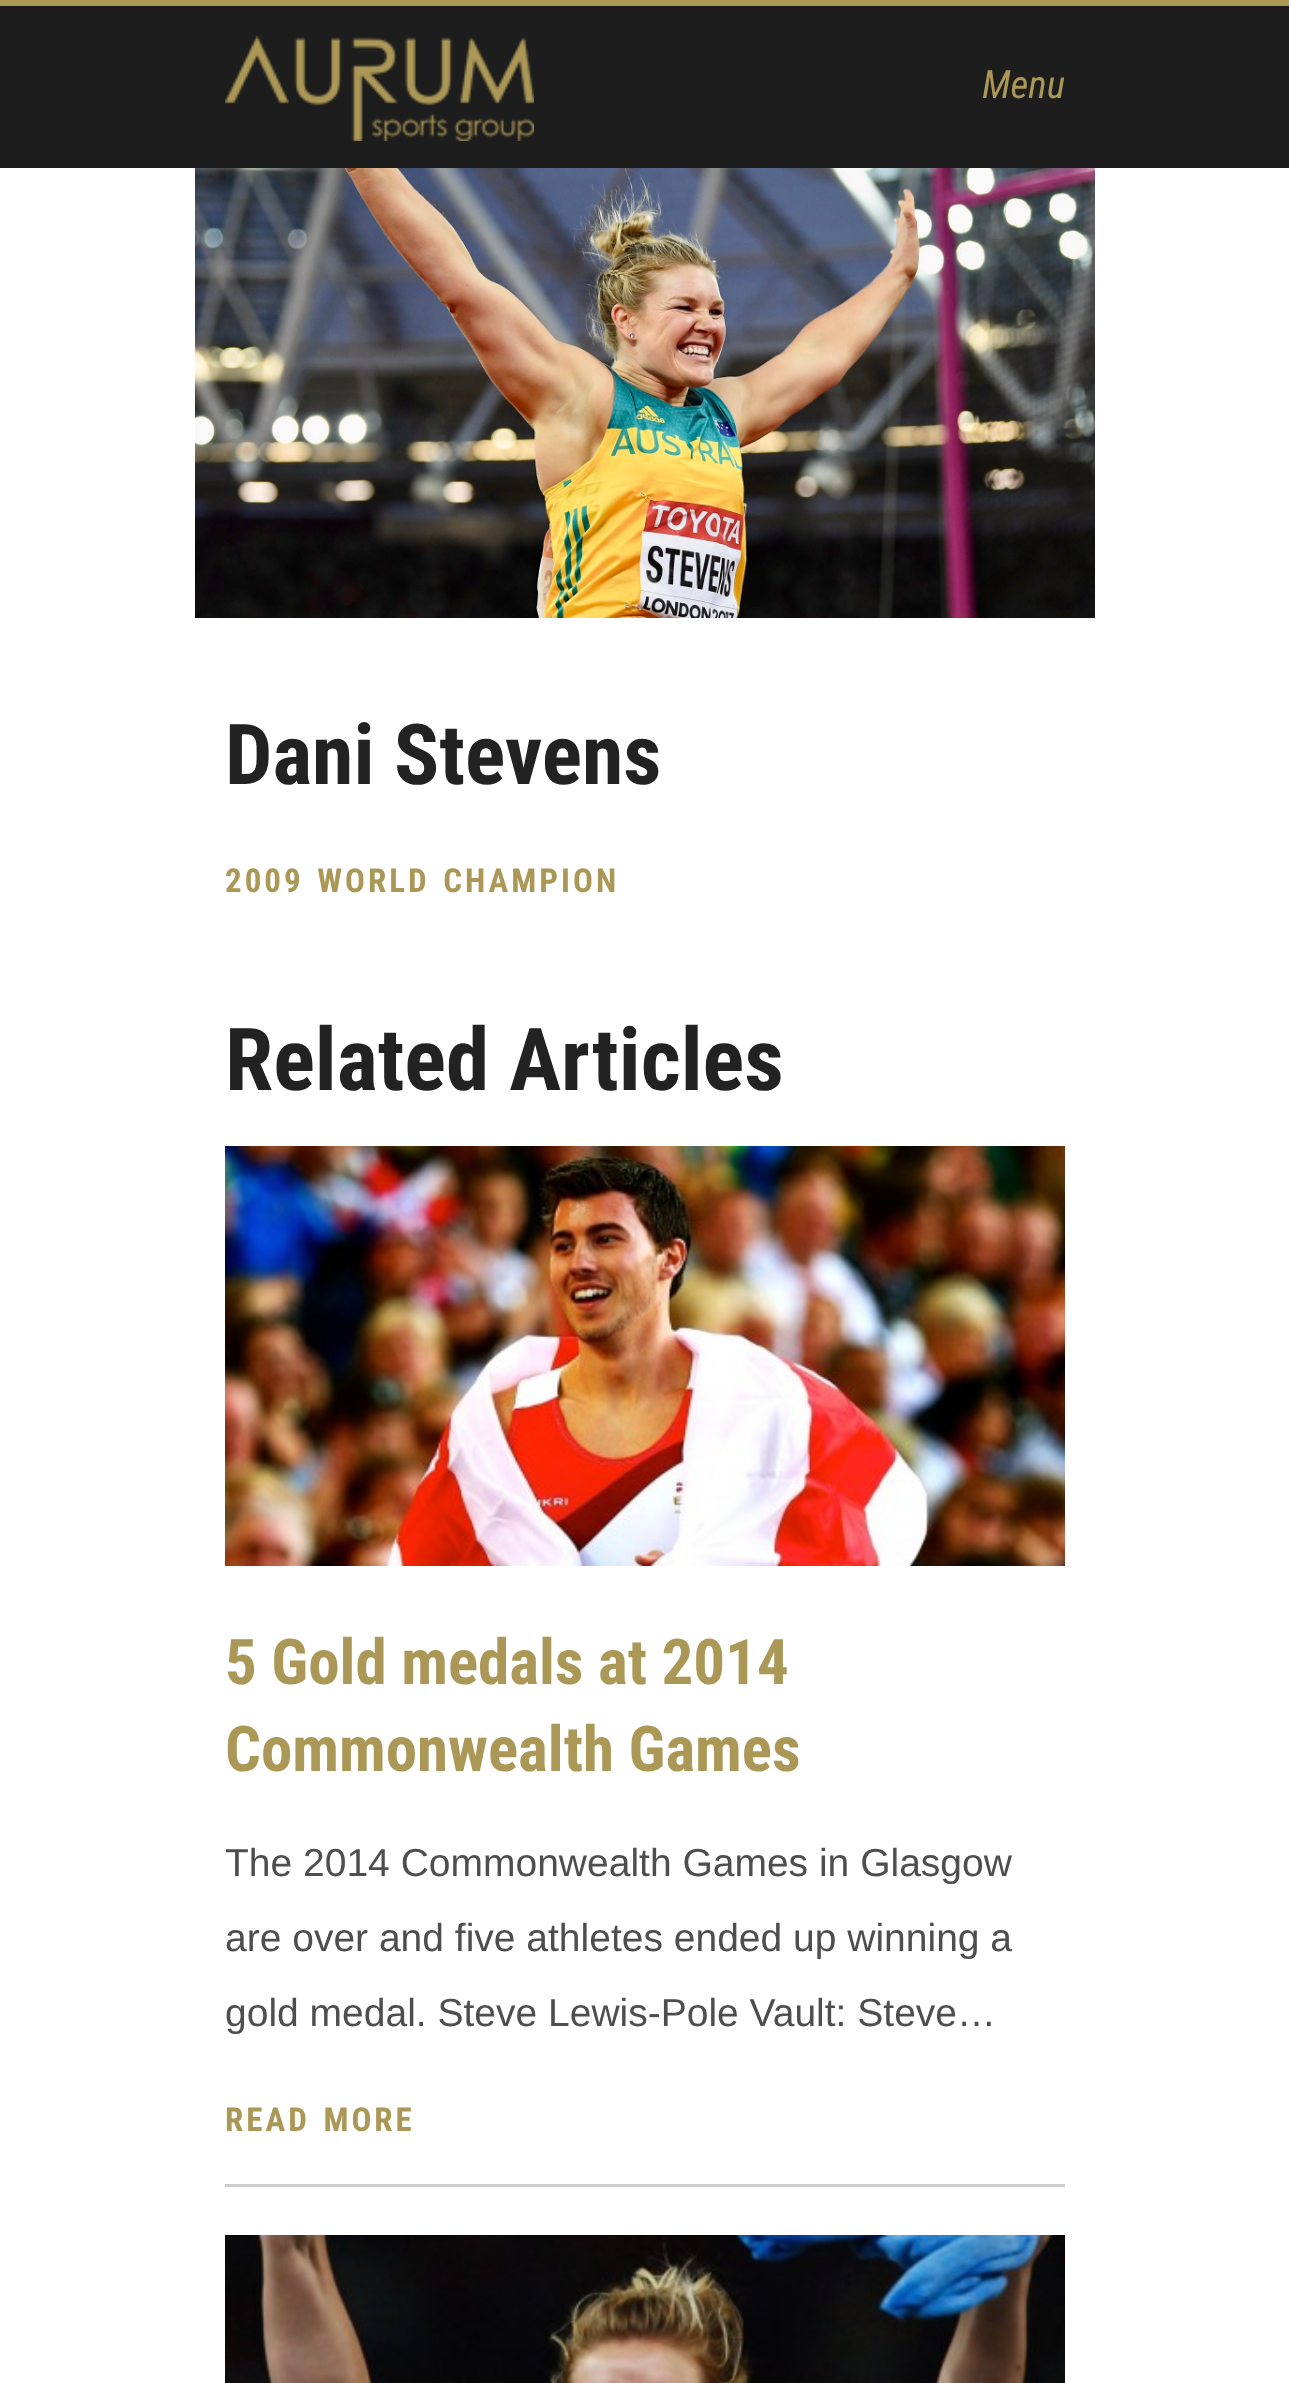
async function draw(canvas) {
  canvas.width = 1289
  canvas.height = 2383
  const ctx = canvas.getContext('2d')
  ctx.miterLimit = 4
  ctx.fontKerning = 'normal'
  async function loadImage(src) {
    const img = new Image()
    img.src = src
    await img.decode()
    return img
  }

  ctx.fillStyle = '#fff'
  ctx.fillRect(0, 0, 1289, 2383)
  ctx.fillStyle = '#ab9756'
  ctx.fillRect(0, 0, 1289, 6)
  ctx.fillStyle = '#1d1d1d'
  ctx.fillRect(0, 6, 1289, 162)
  ctx.drawImage(await loadImage('image0.png'), 225, 36, 309, 105)
  ctx.font = 'italic 39px Roboto Condensed'
  ctx.fillStyle = '#ab9756'
  ctx.fillText('Menu', 982, 98)
  ctx.drawImage(await loadImage('image1.png'), 195, 168, 900, 450)
  ctx.font = 'bold 84px Roboto Condensed'
  ctx.fillStyle = '#222'
  ctx.fillText('Dani Stevens', 225, 784)
  ctx.letterSpacing = '3px'
  ctx.wordSpacing = '3px'
  ctx.font = 'bold 33px Roboto Condensed'
  ctx.fillStyle = '#ab9756'
  ctx.fillText('2009 WORLD CHAMPION', 225, 892)
  ctx.letterSpacing = '0px'
  ctx.wordSpacing = '0px'
  ctx.font = 'bold 87px Roboto Condensed'
  ctx.fillStyle = '#222'
  ctx.fillText('Related Articles', 225, 1090)
  ctx.drawImage(await loadImage('image2.png'), 225, 1146, 840, 420)
  ctx.font = 'bold 63px Roboto Condensed'
  ctx.fillStyle = '#ab9756'
  ctx.fillText('5 Gold medals at 2014', 225, 1684)
  ctx.fillText('Commonwealth Games', 225, 1771)
  ctx.font = '39px Liberation Sans'
  ctx.fillStyle = '#4e4e4e'
  ctx.fillText('The 2014 Commonwealth Games in Glasgow', 225, 1876)
  ctx.fillText('are over and five athletes ended up winning a', 225, 1951)
  ctx.fillText('gold medal. Steve Lewis-Pole Vault: Steve…', 225, 2026)
  ctx.letterSpacing = '3px'
  ctx.wordSpacing = '3px'
  ctx.font = 'bold 33px Roboto Condensed'
  ctx.fillStyle = '#ab9756'
  ctx.fillText('READ MORE', 225, 2131)
  ctx.fillStyle = '#ccc'
  ctx.fillRect(225, 2184, 840, 3)
  ctx.drawImage(await loadImage('image3.png'), 225, 2235, 840, 148)
}

draw(document.querySelector('canvas'))
